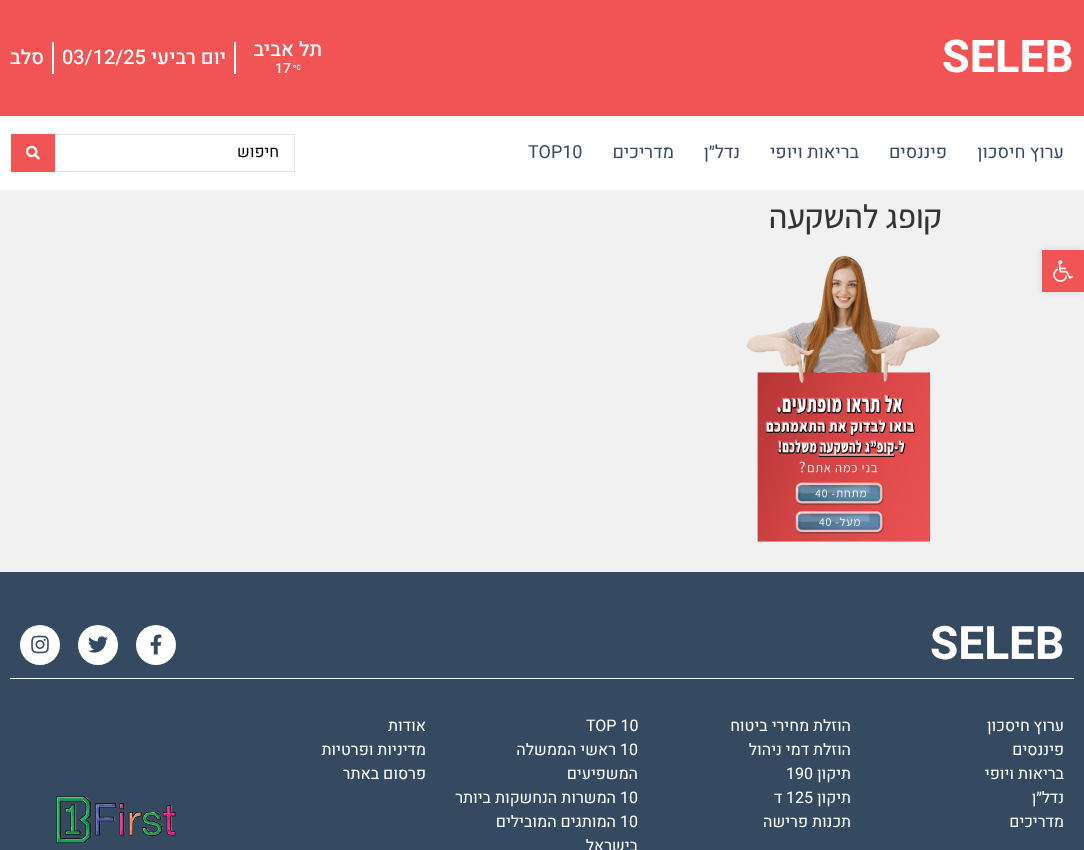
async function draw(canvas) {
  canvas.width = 1084
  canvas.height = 850
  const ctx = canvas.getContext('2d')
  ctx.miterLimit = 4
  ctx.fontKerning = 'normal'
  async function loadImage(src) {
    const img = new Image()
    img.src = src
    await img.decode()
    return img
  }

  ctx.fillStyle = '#f1f1f1'
  ctx.fillRect(0, 0, 1084, 850)
  ctx.fillStyle = '#f05455'
  ctx.fillRect(0, 0, 1084, 116)
  ctx.font = 'bold 45px Heebo'
  ctx.fillStyle = '#fff'
  ctx.fillText('SELEB', 942, 72)
  ctx.direction = 'rtl'
  ctx.font = '500 20px Heebo'
  ctx.fillText('תל אביב', 322, 56)
  ctx.drawImage(await loadImage('image0.png'), 293, 64, 8, 6)
  ctx.direction = 'ltr'
  ctx.font = '500 14px Heebo'
  ctx.fillText('17', 275, 73)
  ctx.fillRect(234, 42, 2, 32)
  ctx.direction = 'rtl'
  ctx.font = '500 20px Heebo'
  ctx.fillText('יום רביעי', 226, 64)
  ctx.direction = 'ltr'
  ctx.fillText('03/12/25', 62, 64)
  ctx.fillRect(52, 42, 2, 32)
  ctx.direction = 'rtl'
  ctx.fillText('סלב', 44, 64)
  ctx.fillRect(0, 116, 1084, 74)
  ctx.font = '18px Heebo'
  ctx.fillStyle = '#354960'
  ctx.fillText('ערוץ חיסכון', 1064, 158)
  ctx.fillText('פיננסים', 947, 158)
  ctx.fillText('בריאות ויופי', 859, 158)
  ctx.fillText('נדל״ן', 740, 158)
  ctx.fillText('מדריכים', 674, 158)
  ctx.direction = 'ltr'
  ctx.fillText('TOP10', 528, 158)
  ctx.strokeStyle = '#e1e5eb'
  ctx.strokeRect(55.5, 134.5, 239, 37)
  ctx.direction = 'rtl'
  ctx.font = '16px Heebo'
  ctx.fillStyle = '#000'
  ctx.fillText('חיפוש', 279, 157)
  ctx.fillStyle = '#f05455'
  ctx.fillRect(11, 134, 44, 38)
  ctx.drawImage(await loadImage('image1.png'), 26, 145, 14, 15)
  ctx.font = '500 33px Assistant'
  ctx.fillStyle = '#333'
  ctx.fillText('קופג להשקעה', 942, 228)
  ctx.drawImage(await loadImage('image2.png'), 746, 255, 194, 287)
  ctx.fillStyle = '#0000001a'
  ctx.filter = 'blur(5px)'
  ctx.beginPath()
  ctx.rect(1042, 250, 42, 42)
  ctx.fill()
  ctx.filter = 'none'
  ctx.fillStyle = '#f05455'
  ctx.fillRect(1042, 250, 42, 42)
  ctx.drawImage(await loadImage('image3.png'), 1053, 260, 21, 22)
  ctx.fillStyle = '#354960'
  ctx.fillRect(0, 572, 1084, 278)
  ctx.fillStyle = '#fff'
  ctx.fillRect(10, 678, 1064, 1)
  ctx.direction = 'ltr'
  ctx.font = 'bold 46px Heebo'
  ctx.fillText('SELEB', 930, 659)
  ctx.beginPath()
  ctx.arc(156, 645, 20, 0, 2 * Math.PI)
  ctx.fill()
  ctx.drawImage(await loadImage('image4.png'), 150, 634, 12, 21)
  ctx.beginPath()
  ctx.arc(98, 645, 20, 0, 2 * Math.PI)
  ctx.fill()
  ctx.drawImage(await loadImage('image5.png'), 88, 636, 20, 17)
  ctx.beginPath()
  ctx.arc(40, 645, 20, 0, 2 * Math.PI)
  ctx.fill()
  ctx.drawImage(await loadImage('image6.png'), 31, 635, 18, 19)
  ctx.direction = 'rtl'
  ctx.font = '16px Heebo'
  ctx.fillText('ערוץ חיסכון', 1064, 731)
  ctx.fillText('פיננסים', 1064, 755)
  ctx.fillText('בריאות ויופי', 1064, 779)
  ctx.fillText('נדל״ן', 1064, 803)
  ctx.fillText('מדריכים', 1064, 827)
  ctx.fillText('הוזלת מחירי ביטוח', 851, 731)
  ctx.fillText('הוזלת דמי ניהול', 851, 755)
  ctx.fillText('תיקון', 851, 779)
  ctx.direction = 'ltr'
  ctx.fillText('190', 786, 779)
  ctx.direction = 'rtl'
  ctx.fillText('תיקון', 851, 803)
  ctx.direction = 'ltr'
  ctx.fillText('125', 786, 803)
  ctx.direction = 'rtl'
  ctx.fillText('ד', 782, 803)
  ctx.fillText('תכנות פרישה', 851, 827)
  ctx.direction = 'ltr'
  ctx.fillText('TOP 10', 586, 731)
  ctx.fillText('10', 620, 755)
  ctx.direction = 'rtl'
  ctx.fillText('ראשי הממשלה', 616, 755)
  ctx.fillText('המשפיעים', 638, 779)
  ctx.direction = 'ltr'
  ctx.fillText('10', 620, 803)
  ctx.direction = 'rtl'
  ctx.fillText('המשרות הנחשקות ביותר', 616, 803)
  ctx.direction = 'ltr'
  ctx.fillText('10', 620, 827)
  ctx.direction = 'rtl'
  ctx.fillText('המותגים המובילים', 616, 827)
  ctx.fillText('בישראל', 638, 851)
  ctx.fillText('אודות', 426, 731)
  ctx.fillText('מדיניות ופרטיות', 426, 755)
  ctx.fillText('פרסום באתר', 426, 779)
  ctx.drawImage(await loadImage('image7.png'), 56, 796, 120, 47)
}

draw(document.querySelector('canvas'))
